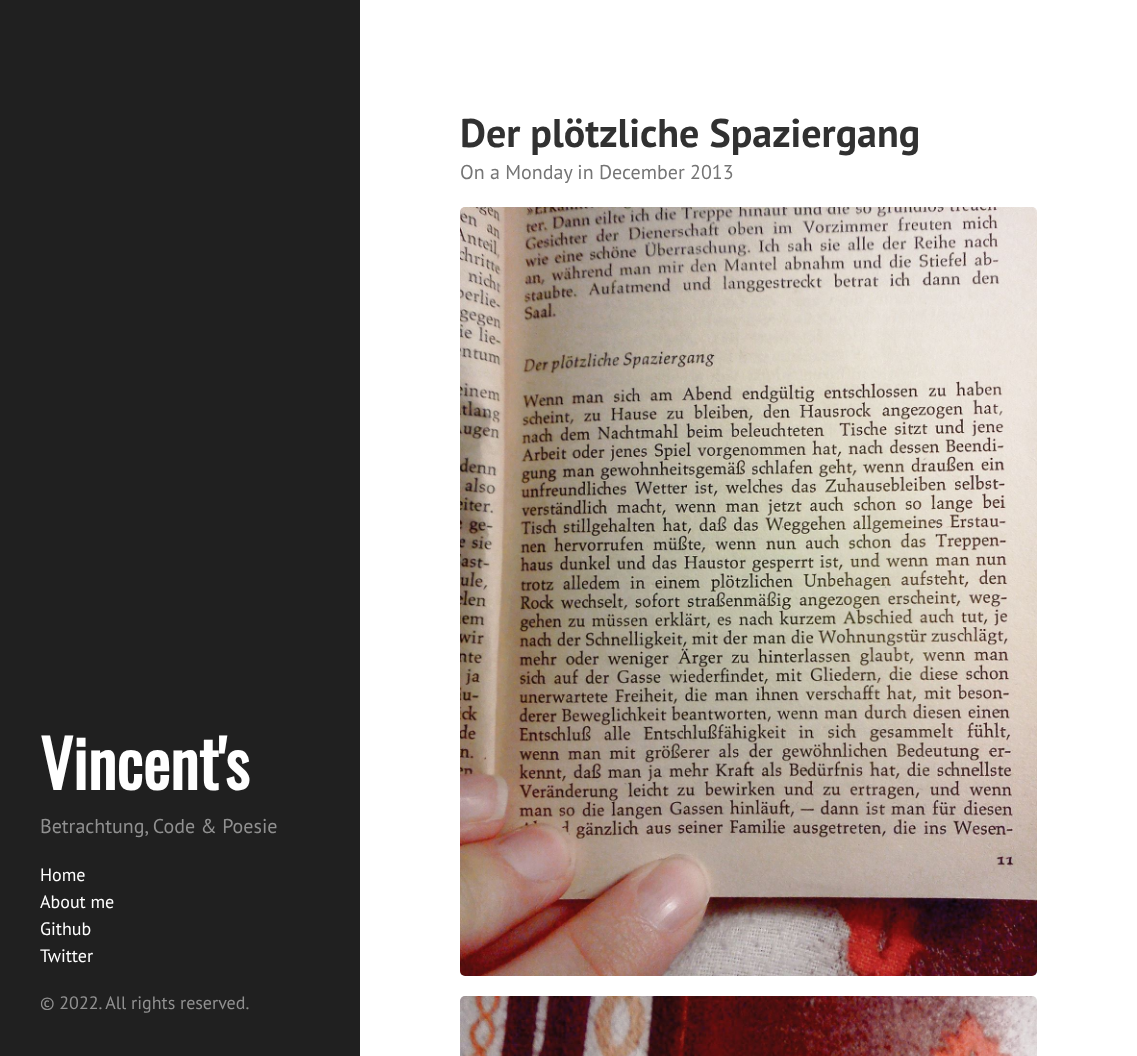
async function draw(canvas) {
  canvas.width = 1137
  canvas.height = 1056
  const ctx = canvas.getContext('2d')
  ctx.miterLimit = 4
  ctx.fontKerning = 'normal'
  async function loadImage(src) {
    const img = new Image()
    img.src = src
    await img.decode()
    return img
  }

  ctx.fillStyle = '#fff'
  ctx.fillRect(0, 0, 1137, 1056)
  ctx.font = 'bold 40px PT Sans'
  ctx.fillStyle = '#313131'
  ctx.fillText('Der plötzliche Spaziergang', 460, 147)
  ctx.font = '20px PT Sans'
  ctx.fillStyle = '#757575'
  ctx.fillText('On a Monday in December 2013', 460, 179)
  ctx.drawImage(await loadImage('image0.png'), 460, 207, 577, 769)
  ctx.drawImage(await loadImage('image1.png'), 460, 996, 577, 60)
  ctx.fillStyle = '#202020'
  ctx.fillRect(0, 0, 360, 1056)
  ctx.font = 'bold 65px Oswald'
  ctx.fillStyle = '#fff'
  ctx.fillText('Vincent\'s', 40, 790)
  ctx.font = '20px PT Sans'
  ctx.fillStyle = '#909090'
  ctx.fillText('Betrachtung, Code & Poesie', 40, 833)
  ctx.font = '18px PT Sans'
  ctx.fillStyle = '#fff'
  ctx.fillText('Home', 40, 881)
  ctx.fillText('About me', 40, 908)
  ctx.fillText('Github', 40, 935)
  ctx.fillText('Twitter', 40, 962)
  ctx.fillStyle = '#909090'
  ctx.fillText('© 2022. All rights reserved.', 40, 1009)
}

draw(document.querySelector('canvas'))
